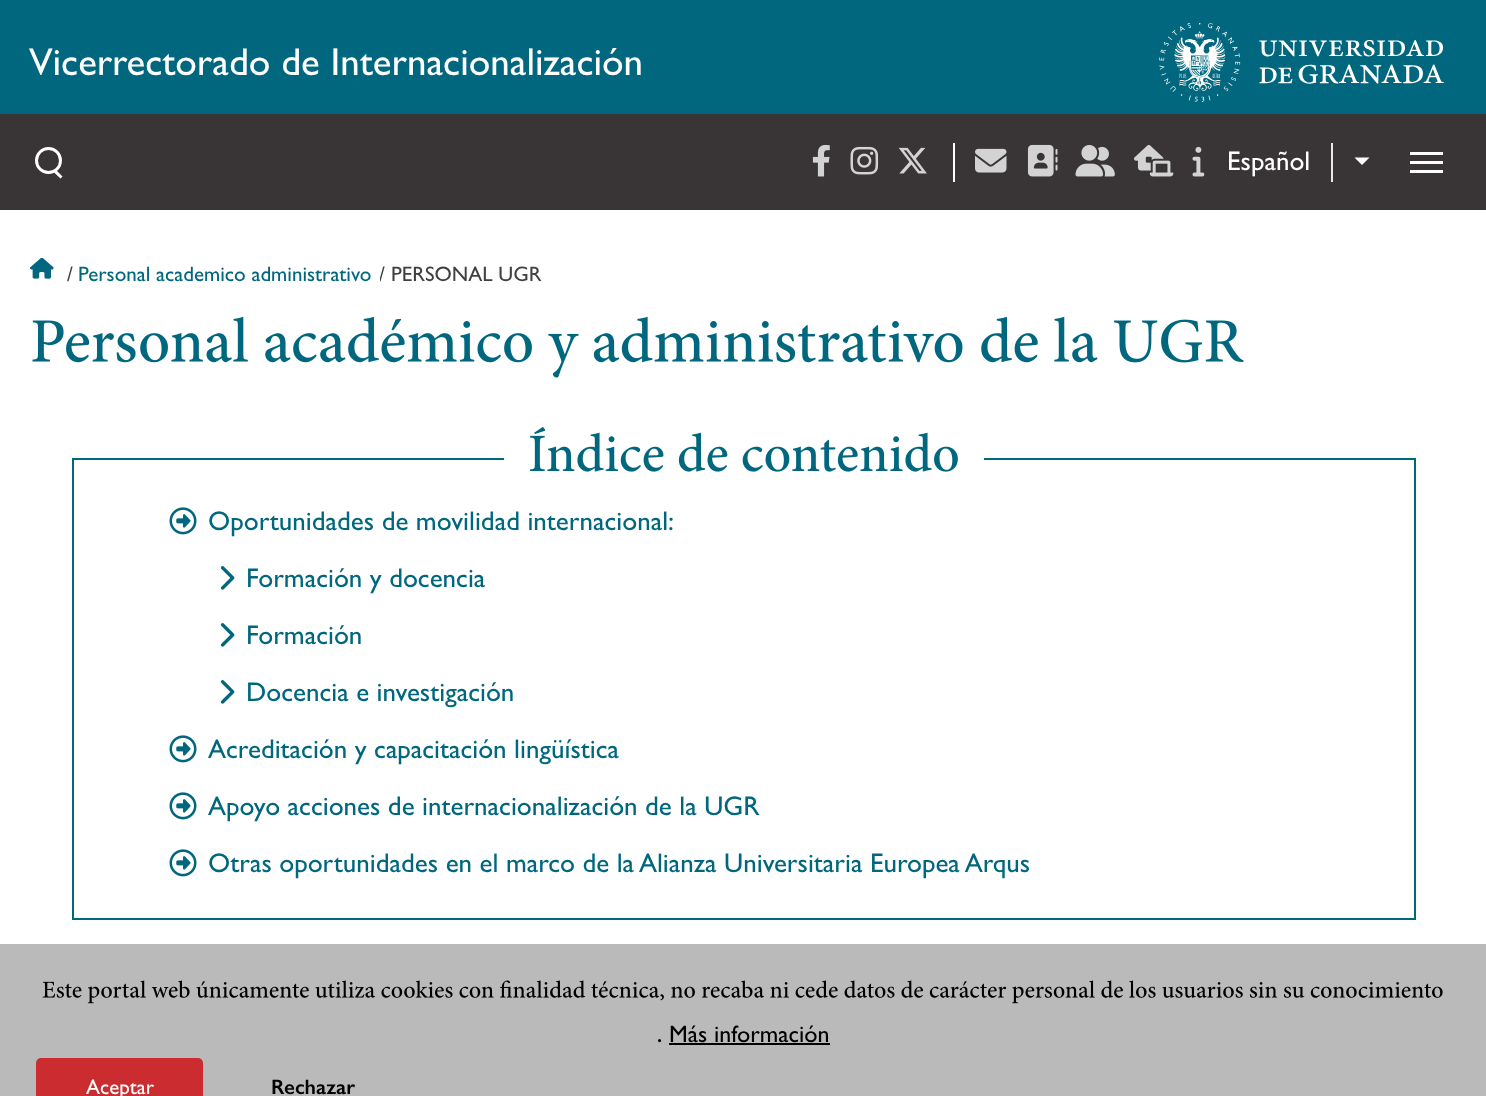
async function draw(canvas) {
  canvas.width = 1486
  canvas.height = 1096
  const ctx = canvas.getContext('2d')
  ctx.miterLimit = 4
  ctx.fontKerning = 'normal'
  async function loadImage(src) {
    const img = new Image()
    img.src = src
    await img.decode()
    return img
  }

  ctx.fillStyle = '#fff'
  ctx.fillRect(0, 0, 1486, 1096)
  ctx.fillStyle = '#00677f'
  ctx.fillRect(0, 0, 1486, 114)
  ctx.fillStyle = '#393536'
  ctx.fillRect(0, 114, 1486, 96)
  ctx.font = '39px Gill Sans'
  ctx.fillStyle = '#fff'
  ctx.fillText('Vicerrectorado de Internacionalización', 29, 75)
  ctx.drawImage(await loadImage('image0.png'), 1159, 23, 285, 79)
  ctx.beginPath()
  ctx.arc(48.5, 160.5, 12, 0, 2 * Math.PI)
  ctx.strokeStyle = '#fff'
  ctx.lineWidth = 3
  ctx.stroke()
  ctx.beginPath()
  ctx.moveTo(55.5, 169.5)
  ctx.lineTo(62.5, 176.5)
  ctx.lineTo(60.5, 178.5)
  ctx.lineTo(53, 171.5)
  ctx.closePath()
  ctx.fill()
  ctx.drawImage(await loadImage('image1.png'), 812, 144, 18, 33)
  ctx.drawImage(await loadImage('image2.png'), 850, 146, 29, 29)
  ctx.drawImage(await loadImage('image3.png'), 898, 147, 29, 27)
  ctx.fillRect(953, 143, 2, 39)
  ctx.drawImage(await loadImage('image4.png'), 975, 148, 32, 25)
  ctx.drawImage(await loadImage('image5.png'), 1027, 144, 31, 33)
  ctx.drawImage(await loadImage('image6.png'), 1075, 144, 40, 33)
  ctx.drawImage(await loadImage('image7.png'), 1134, 145, 40, 32)
  ctx.drawImage(await loadImage('image8.png'), 1192, 146, 13, 31)
  ctx.fillStyle = '#e8e8e8'
  ctx.fillRect(1331, 143, 2, 39)
  ctx.font = '27px Gill Sans'
  ctx.fillStyle = '#fff'
  ctx.fillText('Español', 1227, 170)
  ctx.beginPath()
  ctx.moveTo(1354.5, 157.5)
  ctx.lineTo(1369.5, 157.5)
  ctx.lineTo(1362, 165)
  ctx.closePath()
  ctx.fill()
  ctx.fillRect(1410, 161, 33, 3)
  ctx.fillRect(1410, 152, 33, 3)
  ctx.fillRect(1410, 170, 33, 3)
  ctx.drawImage(await loadImage('image9.png'), 30, 258, 24, 21)
  ctx.font = '21px Gill Sans'
  ctx.fillStyle = '#404040'
  ctx.fillText('/', 67, 281)
  ctx.fillStyle = '#00677f'
  ctx.fillText('Personal academico administrativo', 78, 281)
  ctx.save()
  ctx.beginPath()
  ctx.rect(380, 258, 162, 30)
  ctx.clip()
  ctx.fillStyle = '#404040'
  ctx.fillText('/', 379, 281)
  ctx.restore()
  ctx.fillStyle = '#404040'
  ctx.fillText('PERSONAL UGR', 391, 281)
  ctx.drawImage(await loadImage('image10.png'), 32, 316, 1212, 62)
  ctx.strokeStyle = '#00677f'
  ctx.lineWidth = 2
  ctx.strokeRect(73, 459, 1342, 460)
  ctx.fillStyle = '#fff'
  ctx.fillRect(504, 458, 480, 2)
  ctx.drawImage(await loadImage('image11.png'), 530, 427, 428, 45)
  ctx.drawImage(await loadImage('image12.png'), 169, 507, 28, 28)
  ctx.font = '27px Gill Sans'
  ctx.fillStyle = '#00677f'
  ctx.fillText('Oportunidades de movilidad internacional:', 208, 530)
  ctx.drawImage(await loadImage('image13.png'), 220, 566, 15, 24)
  ctx.fillText('Formación y docencia', 246, 587)
  ctx.drawImage(await loadImage('image13.png'), 220, 623, 15, 24)
  ctx.fillText('Formación', 246, 644)
  ctx.drawImage(await loadImage('image13.png'), 220, 680, 15, 24)
  ctx.fillText('Docencia e investigación', 246, 701)
  ctx.drawImage(await loadImage('image12.png'), 169, 735, 28, 28)
  ctx.fillText('Acreditación y capacitación lingüística', 208, 758)
  ctx.drawImage(await loadImage('image12.png'), 169, 792, 28, 28)
  ctx.fillText('Apoyo acciones de internacionalización de la UGR', 208, 815)
  ctx.drawImage(await loadImage('image12.png'), 169, 849, 28, 28)
  ctx.fillText('Otras oportunidades en el marco de la Alianza Universitaria Europea Arqus', 208, 872)
  ctx.fillStyle = '#bababa'
  ctx.fillRect(0, 944, 1486, 152)
  ctx.drawImage(await loadImage('image14.png'), 42, 980, 1401, 24)
  ctx.font = '600 21px Gill Sans'
  ctx.fillStyle = '#000'
  ctx.fillText('.', 657, 1042)
  ctx.font = '24px Gill Sans'
  ctx.fillText('Más información', 669, 1042)
  ctx.fillRect(669, 1043, 161, 2)
  ctx.fillStyle = '#cb2c30'
  ctx.beginPath()
  ctx.roundRect(36, 1058, 167, 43, 5)
  ctx.fill()
  ctx.font = '21px Gill Sans'
  ctx.fillStyle = '#fff'
  ctx.fillText('Aceptar', 86, 1094)
  ctx.font = '600 21px Gill Sans'
  ctx.fillStyle = '#000'
  ctx.fillText('Rechazar', 271, 1094)
}

draw(document.querySelector('canvas'))
